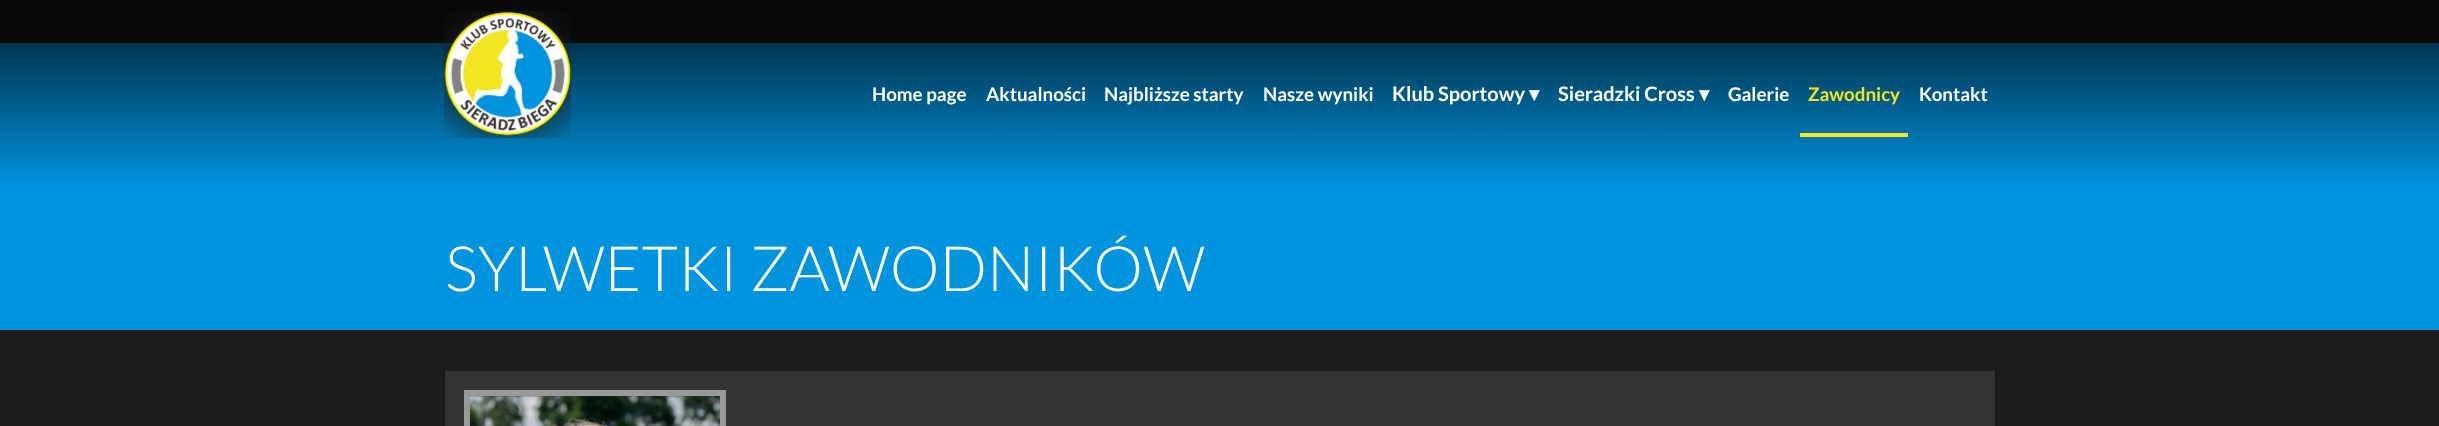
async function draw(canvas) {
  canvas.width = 2439
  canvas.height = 426
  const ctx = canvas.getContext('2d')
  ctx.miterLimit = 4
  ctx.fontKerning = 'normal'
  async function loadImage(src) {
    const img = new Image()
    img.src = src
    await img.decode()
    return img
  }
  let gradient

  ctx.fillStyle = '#1c1c1c'
  ctx.fillRect(0, 0, 2439, 426)
  ctx.fillStyle = '#0094de'
  ctx.fillRect(0, 43, 2439, 287)
  gradient = ctx.createLinearGradient(1220, 0, 1220, 188)
  gradient.addColorStop(0.15, '#000000b3')
  gradient.addColorStop(1, '#00000000')
  ctx.fillStyle = gradient
  ctx.fillRect(0, 0, 2439, 183)
  ctx.drawImage(await loadImage('image0.png'), 444, 11, 127, 127)
  ctx.font = 'bold 18.75px Lato'
  ctx.fillStyle = '#fff'
  ctx.fillText('Home page', 872, 101)
  ctx.fillText('Aktualności', 986, 101)
  ctx.fillText('Najbliższe starty', 1104, 101)
  ctx.fillText('Nasze wyniki', 1263, 101)
  ctx.font = 'bold 20px Lato'
  ctx.fillText('Klub Sportowy', 1392, 101)
  ctx.font = 'bold 20px DejaVu Sans'
  ctx.fillText('▾', 1529, 101)
  ctx.font = 'bold 20px Lato'
  ctx.fillText('Sieradzki Cross', 1558, 101)
  ctx.font = 'bold 20px DejaVu Sans'
  ctx.fillText('▾', 1699, 101)
  ctx.font = 'bold 18.75px Lato'
  ctx.fillText('Galerie', 1728, 101)
  ctx.fillStyle = '#f2e521'
  ctx.fillText('Zawodnicy', 1808, 101)
  ctx.fillRect(1800, 133, 108, 4)
  ctx.fillStyle = '#fff'
  ctx.fillText('Kontakt', 1919, 101)
  ctx.font = '300 62.5px Lato'
  ctx.fillText('SYLWETKI ZAWODNIKÓW', 445, 291)
  ctx.fillStyle = '#333'
  ctx.fillRect(445, 371, 1550, 55)
  ctx.strokeStyle = '#999'
  ctx.lineWidth = 6
  ctx.strokeRect(467, 393, 256, 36)
  ctx.drawImage(await loadImage('image1.png'), 470, 396, 250, 30)
}

draw(document.querySelector('canvas'))
